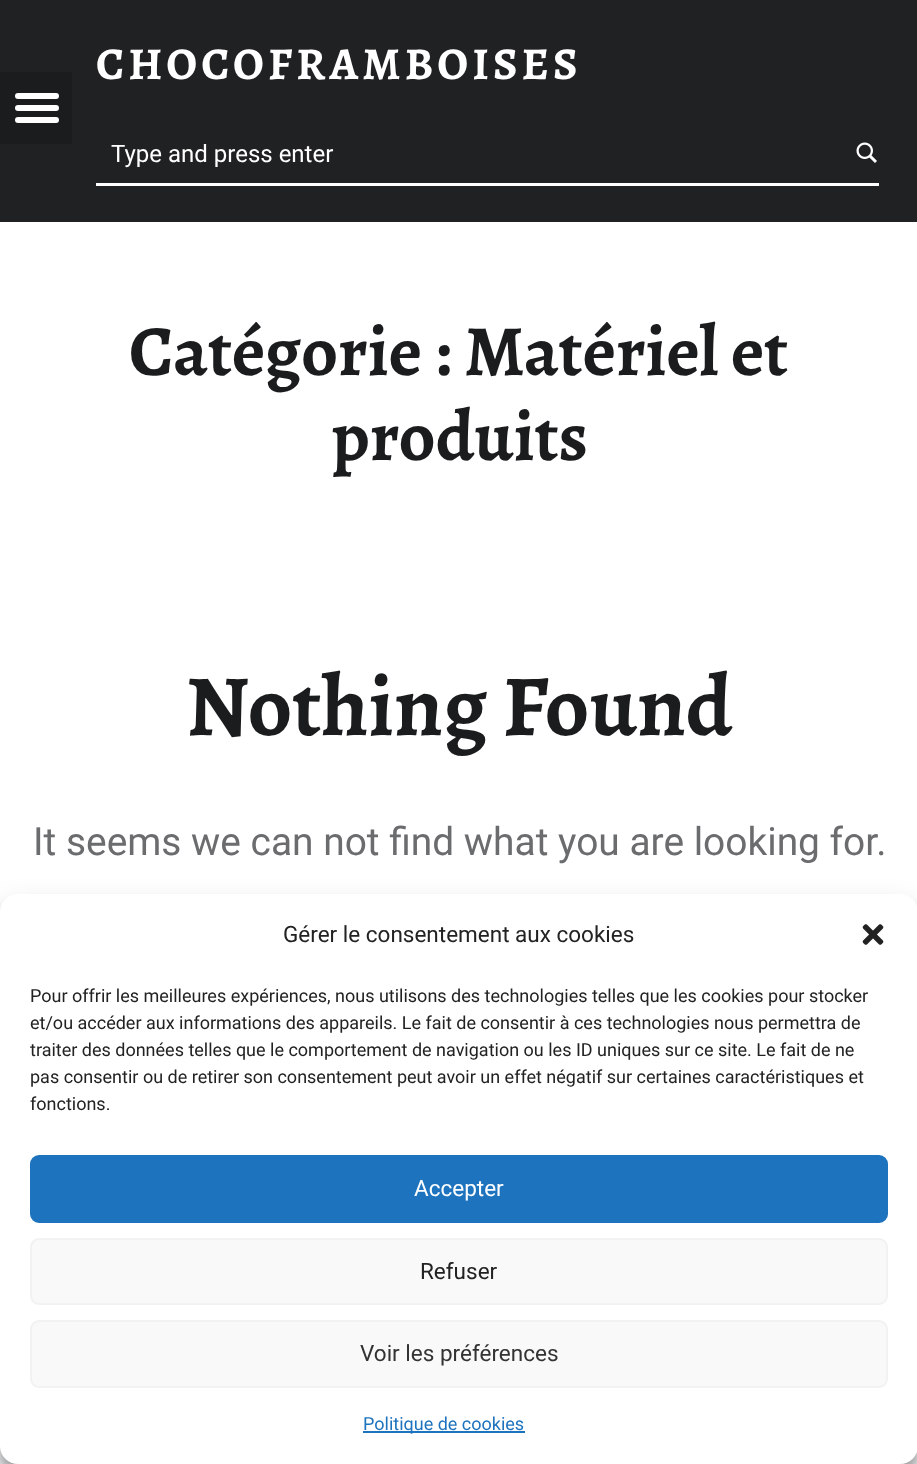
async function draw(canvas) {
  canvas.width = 917
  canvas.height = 1464
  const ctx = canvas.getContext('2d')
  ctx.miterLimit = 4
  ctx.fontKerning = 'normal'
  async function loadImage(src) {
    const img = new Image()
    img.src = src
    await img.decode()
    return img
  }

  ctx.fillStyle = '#f5f7f9'
  ctx.fillRect(0, 0, 917, 1464)
  ctx.fillStyle = '#fff'
  ctx.fillRect(0, 222, 917, 690)
  ctx.fillStyle = '#202123'
  ctx.fillRect(0, 0, 917, 222)
  ctx.letterSpacing = '4.1px'
  ctx.font = 'bold 45.6px Alegreya'
  ctx.fillStyle = '#fff'
  ctx.fillText('CHOCOFRAMBOISES', 96, 79)
  ctx.fillStyle = '#1a1c1e'
  ctx.fillRect(0, 72, 72, 72)
  ctx.fillStyle = '#fff'
  ctx.beginPath()
  ctx.roundRect(15, 93, 44, 6, 3)
  ctx.fill()
  ctx.beginPath()
  ctx.roundRect(15, 105, 44, 6, 3)
  ctx.fill()
  ctx.beginPath()
  ctx.roundRect(15, 117, 44, 6, 3)
  ctx.fill()
  ctx.fillRect(96, 183, 783, 3)
  ctx.letterSpacing = '0px'
  ctx.font = '24px Roboto'
  ctx.fillText('Type and press enter', 111, 162)
  ctx.drawImage(await loadImage('image0.png'), 856, 142, 21, 21)
  ctx.font = 'bold 72px Alegreya'
  ctx.fillStyle = '#1a1c1e'
  ctx.fillText('Catégorie : Matériel et', 129, 375)
  ctx.fillText('produits', 331, 460)
  ctx.font = 'bold 87px Alegreya'
  ctx.fillText('Nothing Found', 186, 735)
  ctx.font = '38.9px Roboto'
  ctx.fillStyle = '#6a6c6e'
  ctx.fillText('It seems we can not find what you are looking for.', 33, 855)
  ctx.fillStyle = '#0000003b'
  ctx.filter = 'blur(4.5px)'
  ctx.beginPath()
  ctx.roundRect(0, 903, 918, 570, 18)
  ctx.fill()
  ctx.filter = 'none'
  ctx.fillStyle = '#00000030'
  ctx.filter = 'blur(15px)'
  ctx.beginPath()
  ctx.roundRect(0, 909, 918, 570, 18)
  ctx.fill()
  ctx.filter = 'none'
  ctx.fillStyle = '#fff'
  ctx.beginPath()
  ctx.roundRect(0, 894, 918, 570, 18)
  ctx.fill()
  ctx.font = '22.5px Roboto'
  ctx.fillStyle = '#222'
  ctx.fillText('Gérer le consentement aux cookies', 283, 942)
  ctx.drawImage(await loadImage('image1.png'), 862, 924, 22, 21)
  ctx.font = '18px Roboto'
  ctx.fillText('Pour offrir les meilleures expériences, nous utilisons des technologies telles que les cookies pour stocker', 30, 1002)
  ctx.fillText('et/ou accéder aux informations des appareils. Le fait de consentir à ces technologies nous permettra de', 30, 1029)
  ctx.fillText('traiter des données telles que le comportement de navigation ou les ID uniques sur ce site. Le fait de ne', 30, 1056)
  ctx.fillText('pas consentir ou de retirer son consentement peut avoir un effet négatif sur certaines caractéristiques et', 30, 1083)
  ctx.fillText('fonctions.', 30, 1110)
  ctx.fillStyle = '#1e73be'
  ctx.beginPath()
  ctx.roundRect(31, 1156, 856, 66, 8)
  ctx.fill()
  ctx.strokeStyle = '#1e73be'
  ctx.lineWidth = 2
  ctx.stroke()
  ctx.font = '22.5px Roboto'
  ctx.fillStyle = '#fff'
  ctx.fillText('Accepter', 414, 1196)
  ctx.fillStyle = '#f9f9f9'
  ctx.beginPath()
  ctx.roundRect(31, 1239, 856, 65, 8)
  ctx.fill()
  ctx.strokeStyle = '#f2f2f2'
  ctx.stroke()
  ctx.fillStyle = '#222'
  ctx.fillText('Refuser', 420, 1279)
  ctx.fillStyle = '#f9f9f9'
  ctx.beginPath()
  ctx.roundRect(31, 1321, 856, 66, 8)
  ctx.fill()
  ctx.stroke()
  ctx.fillStyle = '#333'
  ctx.fillText('Voir les préférences', 360, 1361)
  ctx.fillStyle = '#1e73be'
  ctx.fillRect(363, 1431, 162, 2)
  ctx.font = '18px Roboto'
  ctx.fillText('Politique de cookies', 363, 1430)
}

draw(document.querySelector('canvas'))
